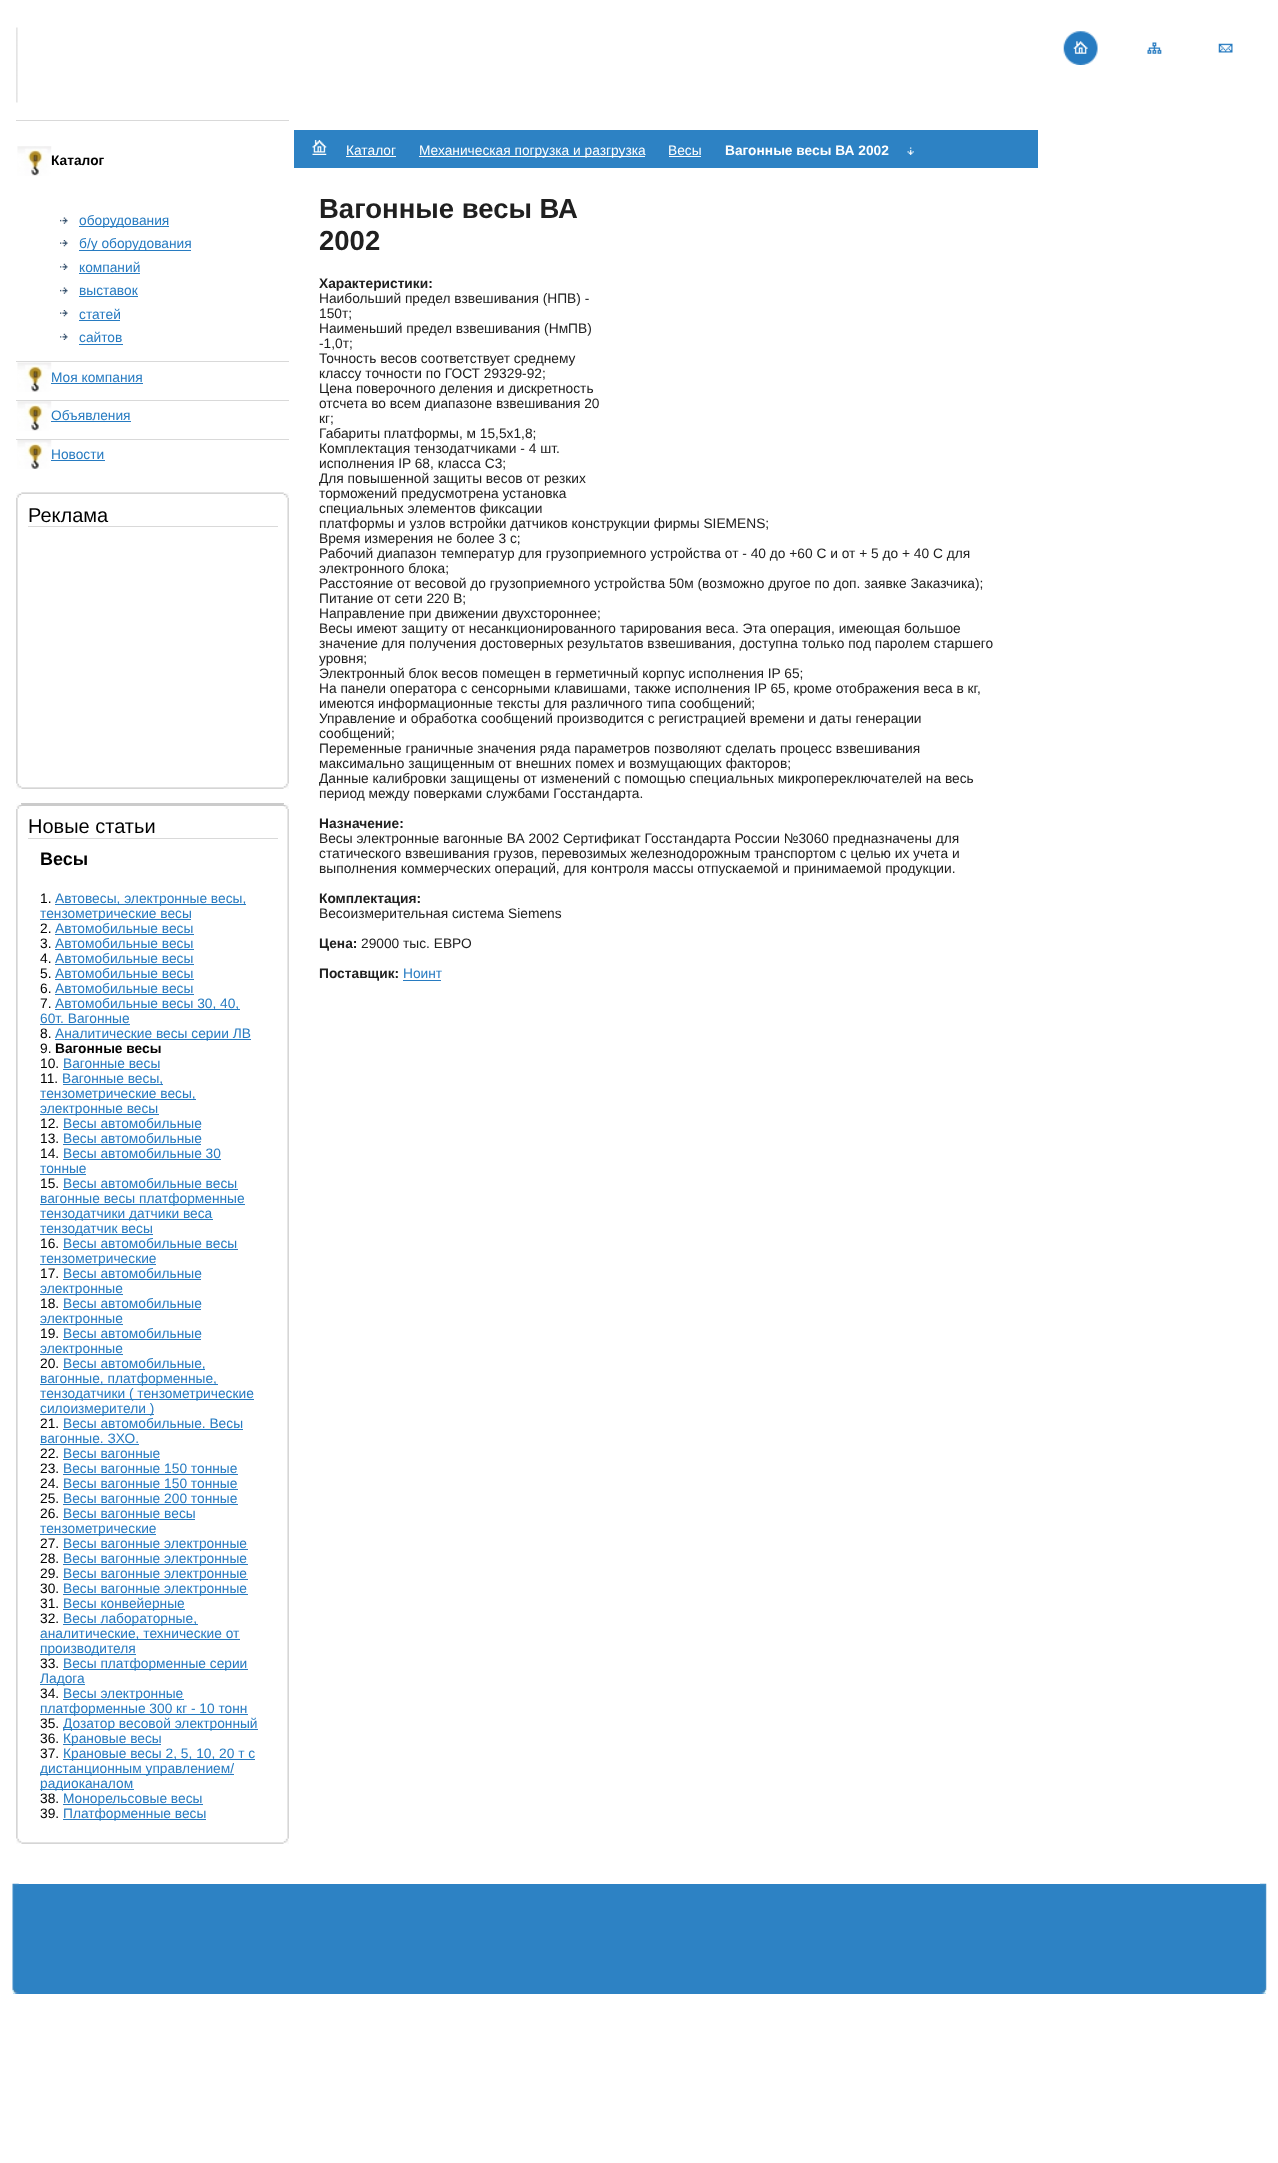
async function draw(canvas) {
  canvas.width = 1278
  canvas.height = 2163
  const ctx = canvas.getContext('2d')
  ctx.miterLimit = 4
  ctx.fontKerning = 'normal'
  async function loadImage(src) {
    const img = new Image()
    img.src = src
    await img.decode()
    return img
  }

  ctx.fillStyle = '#fff'
  ctx.fillRect(0, 0, 1278, 2163)
  ctx.drawImage(await loadImage('image0.png'), 16, 27, 2, 76)
  ctx.drawImage(await loadImage('image1.png'), 1063, 31, 35, 34)
  ctx.drawImage(await loadImage('image2.png'), 1147, 42, 15, 12)
  ctx.drawImage(await loadImage('image3.png'), 1218, 43, 15, 10)
  ctx.fillStyle = '#d9d9d9'
  ctx.fillRect(16, 120, 273, 1)
  ctx.drawImage(await loadImage('image4.png'), 17, 146, 35, 30)
  ctx.font = 'bold 13.75px Liberation Sans'
  ctx.fillStyle = '#000'
  ctx.fillText('Каталог', 51, 165)
  ctx.drawImage(await loadImage('image5.png'), 60, 217, 8, 7)
  ctx.fillStyle = '#277bc1'
  ctx.fillRect(79, 226, 90, 1)
  ctx.font = '13.75px Liberation Sans'
  ctx.fillText('оборудования', 79, 225)
  ctx.drawImage(await loadImage('image6.png'), 60, 240, 8, 7)
  ctx.fillRect(79, 250, 112, 1)
  ctx.fillText('б/у оборудования', 79, 248)
  ctx.drawImage(await loadImage('image7.png'), 60, 263, 8, 7)
  ctx.fillText('компаний', 79, 272)
  ctx.fillRect(79, 273, 61, 1)
  ctx.drawImage(await loadImage('image5.png'), 60, 287, 8, 7)
  ctx.fillText('выставок', 79, 295)
  ctx.fillRect(79, 296, 59, 1)
  ctx.drawImage(await loadImage('image6.png'), 60, 310, 8, 7)
  ctx.fillText('статей', 79, 319)
  ctx.fillRect(79, 320, 41, 1)
  ctx.drawImage(await loadImage('image7.png'), 60, 333, 8, 7)
  ctx.fillText('сайтов', 79, 342)
  ctx.fillRect(79, 344, 44, 1)
  ctx.fillStyle = '#d9d9d9'
  ctx.fillRect(16, 361, 273, 1)
  ctx.drawImage(await loadImage('image8.png'), 17, 362, 35, 30)
  ctx.fillStyle = '#277bc1'
  ctx.fillText('Моя компания', 51, 382)
  ctx.fillRect(51, 383, 92, 1)
  ctx.fillStyle = '#d9d9d9'
  ctx.fillRect(16, 400, 273, 1)
  ctx.drawImage(await loadImage('image4.png'), 17, 401, 35, 30)
  ctx.fillStyle = '#277bc1'
  ctx.fillText('Объявления', 51, 420)
  ctx.fillRect(51, 421, 80, 1)
  ctx.fillStyle = '#d9d9d9'
  ctx.fillRect(16, 439, 273, 1)
  ctx.drawImage(await loadImage('image9.png'), 17, 440, 35, 29)
  ctx.fillStyle = '#277bc1'
  ctx.fillText('Новости', 51, 459)
  ctx.fillRect(51, 460, 54, 1)
  ctx.drawImage(await loadImage('image11.png'), 21, 492, 263, 2)
  ctx.drawImage(await loadImage('image13.png'), 16, 497, 2, 287)
  ctx.drawImage(await loadImage('image10.png'), 16, 493, 6, 5)
  ctx.drawImage(await loadImage('image14.png'), 287, 497, 2, 287)
  ctx.drawImage(await loadImage('image12.png'), 283, 493, 6, 5)
  ctx.font = '20px Liberation Sans'
  ctx.fillStyle = '#000'
  ctx.fillText('Реклама', 28, 522)
  ctx.fillStyle = '#d9d9d9'
  ctx.fillRect(28, 526, 250, 1)
  ctx.drawImage(await loadImage('image16.png'), 21, 787, 263, 2)
  ctx.drawImage(await loadImage('image15.png'), 16, 783, 6, 6)
  ctx.drawImage(await loadImage('image17.png'), 283, 783, 6, 6)
  ctx.fillStyle = '#cbcbcb'
  ctx.fillRect(21, 803, 263, 3)
  ctx.drawImage(await loadImage('image20.png'), 16, 808, 2, 1031)
  ctx.drawImage(await loadImage('image18.png'), 16, 804, 6, 5)
  ctx.drawImage(await loadImage('image21.png'), 287, 808, 2, 1031)
  ctx.drawImage(await loadImage('image19.png'), 283, 804, 6, 5)
  ctx.fillStyle = '#000'
  ctx.fillText('Новые статьи', 28, 833)
  ctx.fillStyle = '#d9d9d9'
  ctx.fillRect(28, 838, 250, 1)
  ctx.font = 'bold 18px Liberation Sans'
  ctx.fillStyle = '#000'
  ctx.fillText('Весы', 40, 865)
  ctx.font = '13.75px Liberation Sans'
  ctx.fillText('1.', 40, 903)
  ctx.fillStyle = '#277bc1'
  ctx.fillRect(55, 904, 191, 1)
  ctx.fillText('Автовесы, электронные весы,', 55, 903)
  ctx.fillRect(40, 919, 151, 1)
  ctx.fillText('тензометрические весы', 40, 918)
  ctx.fillStyle = '#000'
  ctx.fillText('2.', 40, 933)
  ctx.fillStyle = '#277bc1'
  ctx.fillText('Автомобильные весы', 55, 933)
  ctx.fillRect(55, 934, 139, 1)
  ctx.fillStyle = '#000'
  ctx.fillText('3.', 40, 948)
  ctx.fillStyle = '#277bc1'
  ctx.fillText('Автомобильные весы', 55, 948)
  ctx.fillRect(55, 949, 139, 1)
  ctx.fillStyle = '#000'
  ctx.fillText('4.', 40, 963)
  ctx.fillStyle = '#277bc1'
  ctx.fillText('Автомобильные весы', 55, 963)
  ctx.fillRect(55, 964, 139, 1)
  ctx.fillStyle = '#000'
  ctx.fillText('5.', 40, 978)
  ctx.fillStyle = '#277bc1'
  ctx.fillText('Автомобильные весы', 55, 978)
  ctx.fillRect(55, 979, 139, 1)
  ctx.fillStyle = '#000'
  ctx.fillText('6.', 40, 993)
  ctx.fillStyle = '#277bc1'
  ctx.fillText('Автомобильные весы', 55, 993)
  ctx.fillRect(55, 994, 139, 1)
  ctx.fillStyle = '#000'
  ctx.fillText('7.', 40, 1008)
  ctx.fillStyle = '#277bc1'
  ctx.fillRect(55, 1009, 185, 1)
  ctx.fillText('Автомобильные весы 30, 40,', 55, 1008)
  ctx.fillText('60т. Вагонные', 40, 1023)
  ctx.fillRect(40, 1024, 90, 1)
  ctx.fillStyle = '#000'
  ctx.fillText('8.', 40, 1038)
  ctx.fillStyle = '#277bc1'
  ctx.fillRect(55, 1039, 196, 1)
  ctx.fillText('Аналитические весы серии ЛВ', 55, 1038)
  ctx.fillStyle = '#000'
  ctx.fillText('9.', 40, 1053)
  ctx.font = 'bold 13.75px Liberation Sans'
  ctx.fillText('Вагонные весы', 55, 1053)
  ctx.font = '13.75px Liberation Sans'
  ctx.fillText('10.', 40, 1068)
  ctx.fillStyle = '#277bc1'
  ctx.fillText('Вагонные весы', 63, 1068)
  ctx.fillRect(63, 1069, 97, 1)
  ctx.fillStyle = '#000'
  ctx.fillText('11.', 40, 1083)
  ctx.fillStyle = '#277bc1'
  ctx.fillRect(63, 1084, 100, 1)
  ctx.fillText('Вагонные весы,', 62, 1083)
  ctx.fillRect(40, 1099, 156, 1)
  ctx.fillText('тензометрические весы,', 40, 1098)
  ctx.fillRect(40, 1114, 119, 1)
  ctx.fillText('электронные весы', 40, 1113)
  ctx.fillStyle = '#000'
  ctx.fillText('12.', 40, 1128)
  ctx.fillStyle = '#277bc1'
  ctx.fillText('Весы автомобильные', 63, 1128)
  ctx.fillRect(63, 1129, 138, 1)
  ctx.fillStyle = '#000'
  ctx.fillText('13.', 40, 1143)
  ctx.fillStyle = '#277bc1'
  ctx.fillText('Весы автомобильные', 63, 1143)
  ctx.fillRect(63, 1144, 138, 1)
  ctx.fillStyle = '#000'
  ctx.fillText('14.', 40, 1158)
  ctx.fillStyle = '#277bc1'
  ctx.fillText('Весы автомобильные 30', 63, 1158)
  ctx.fillRect(63, 1159, 158, 1)
  ctx.fillText('тонные', 40, 1173)
  ctx.fillRect(40, 1174, 46, 1)
  ctx.fillStyle = '#000'
  ctx.fillText('15.', 40, 1188)
  ctx.fillStyle = '#277bc1'
  ctx.fillText('Весы автомобильные весы', 63, 1188)
  ctx.fillRect(63, 1189, 175, 1)
  ctx.fillRect(40, 1204, 205, 1)
  ctx.fillText('вагонные весы платформенные', 40, 1203)
  ctx.fillRect(40, 1219, 173, 1)
  ctx.fillText('тензодатчики датчики веса', 40, 1218)
  ctx.fillRect(40, 1234, 113, 1)
  ctx.fillText('тензодатчик весы', 40, 1233)
  ctx.fillStyle = '#000'
  ctx.fillText('16.', 40, 1248)
  ctx.fillStyle = '#277bc1'
  ctx.fillText('Весы автомобильные весы', 63, 1248)
  ctx.fillRect(63, 1249, 175, 1)
  ctx.fillRect(40, 1264, 116, 1)
  ctx.fillText('тензометрические', 40, 1263)
  ctx.fillStyle = '#000'
  ctx.fillText('17.', 40, 1278)
  ctx.fillStyle = '#277bc1'
  ctx.fillText('Весы автомобильные', 63, 1278)
  ctx.fillRect(63, 1279, 138, 1)
  ctx.fillRect(40, 1294, 83, 1)
  ctx.fillText('электронные', 40, 1293)
  ctx.fillStyle = '#000'
  ctx.fillText('18.', 40, 1308)
  ctx.fillStyle = '#277bc1'
  ctx.fillText('Весы автомобильные', 63, 1308)
  ctx.fillRect(63, 1309, 138, 1)
  ctx.fillRect(40, 1324, 83, 1)
  ctx.fillText('электронные', 40, 1323)
  ctx.fillStyle = '#000'
  ctx.fillText('19.', 40, 1338)
  ctx.fillStyle = '#277bc1'
  ctx.fillText('Весы автомобильные', 63, 1338)
  ctx.fillRect(63, 1339, 138, 1)
  ctx.fillRect(40, 1354, 83, 1)
  ctx.fillText('электронные', 40, 1353)
  ctx.fillStyle = '#000'
  ctx.fillText('20.', 40, 1368)
  ctx.fillStyle = '#277bc1'
  ctx.fillRect(63, 1369, 142, 1)
  ctx.fillText('Весы автомобильные,', 63, 1368)
  ctx.fillRect(40, 1384, 178, 1)
  ctx.fillText('вагонные, платформенные,', 40, 1383)
  ctx.fillRect(40, 1399, 214, 1)
  ctx.fillText('тензодатчики ( тензометрические', 40, 1398)
  ctx.fillRect(40, 1414, 114, 1)
  ctx.fillText('силоизмерители )', 40, 1413)
  ctx.fillStyle = '#000'
  ctx.fillText('21.', 40, 1428)
  ctx.fillStyle = '#277bc1'
  ctx.fillText('Весы автомобильные. Весы', 63, 1428)
  ctx.fillRect(63, 1429, 180, 1)
  ctx.fillText('вагонные. ЗХО.', 40, 1443)
  ctx.fillRect(40, 1444, 99, 1)
  ctx.fillStyle = '#000'
  ctx.fillText('22.', 40, 1458)
  ctx.fillStyle = '#277bc1'
  ctx.fillText('Весы вагонные', 63, 1458)
  ctx.fillRect(63, 1459, 97, 1)
  ctx.fillStyle = '#000'
  ctx.fillText('23.', 40, 1473)
  ctx.fillStyle = '#277bc1'
  ctx.fillText('Весы вагонные 150 тонные', 63, 1473)
  ctx.fillRect(63, 1474, 175, 1)
  ctx.fillStyle = '#000'
  ctx.fillText('24.', 40, 1488)
  ctx.fillStyle = '#277bc1'
  ctx.fillText('Весы вагонные 150 тонные', 63, 1488)
  ctx.fillRect(63, 1489, 175, 1)
  ctx.fillStyle = '#000'
  ctx.fillText('25.', 40, 1503)
  ctx.fillStyle = '#277bc1'
  ctx.fillText('Весы вагонные 200 тонные', 63, 1503)
  ctx.fillRect(63, 1504, 175, 1)
  ctx.fillStyle = '#000'
  ctx.fillText('26.', 40, 1518)
  ctx.fillStyle = '#277bc1'
  ctx.fillText('Весы вагонные весы', 63, 1518)
  ctx.fillRect(63, 1519, 132, 1)
  ctx.fillRect(40, 1534, 116, 1)
  ctx.fillText('тензометрические', 40, 1533)
  ctx.fillStyle = '#000'
  ctx.fillText('27.', 40, 1548)
  ctx.fillStyle = '#277bc1'
  ctx.fillRect(63, 1549, 185, 1)
  ctx.fillText('Весы вагонные электронные', 63, 1548)
  ctx.fillStyle = '#000'
  ctx.fillText('28.', 40, 1563)
  ctx.fillStyle = '#277bc1'
  ctx.fillRect(63, 1564, 185, 1)
  ctx.fillText('Весы вагонные электронные', 63, 1563)
  ctx.fillStyle = '#000'
  ctx.fillText('29.', 40, 1578)
  ctx.fillStyle = '#277bc1'
  ctx.fillRect(63, 1579, 185, 1)
  ctx.fillText('Весы вагонные электронные', 63, 1578)
  ctx.fillStyle = '#000'
  ctx.fillText('30.', 40, 1593)
  ctx.fillStyle = '#277bc1'
  ctx.fillRect(63, 1594, 185, 1)
  ctx.fillText('Весы вагонные электронные', 63, 1593)
  ctx.fillStyle = '#000'
  ctx.fillText('31.', 40, 1608)
  ctx.fillStyle = '#277bc1'
  ctx.fillRect(63, 1609, 122, 1)
  ctx.fillText('Весы конвейерные', 63, 1608)
  ctx.fillStyle = '#000'
  ctx.fillText('32.', 40, 1623)
  ctx.fillStyle = '#277bc1'
  ctx.fillRect(63, 1624, 135, 1)
  ctx.fillText('Весы лабораторные,', 63, 1623)
  ctx.fillRect(40, 1639, 200, 1)
  ctx.fillText('аналитические, технические от', 40, 1638)
  ctx.fillRect(40, 1654, 96, 1)
  ctx.fillText('производителя', 40, 1653)
  ctx.fillStyle = '#000'
  ctx.fillText('33.', 40, 1668)
  ctx.fillStyle = '#277bc1'
  ctx.fillRect(63, 1669, 185, 1)
  ctx.fillText('Весы платформенные серии', 63, 1668)
  ctx.fillRect(40, 1684, 45, 1)
  ctx.fillText('Ладога', 40, 1683)
  ctx.fillStyle = '#000'
  ctx.fillText('34.', 40, 1698)
  ctx.fillStyle = '#277bc1'
  ctx.fillRect(63, 1699, 121, 1)
  ctx.fillText('Весы электронные', 63, 1698)
  ctx.fillRect(40, 1714, 208, 1)
  ctx.fillText('платформенные 300 кг - 10 тонн', 40, 1713)
  ctx.fillStyle = '#000'
  ctx.fillText('35.', 40, 1728)
  ctx.fillStyle = '#277bc1'
  ctx.fillRect(63, 1729, 195, 1)
  ctx.fillText('Дозатор весовой электронный', 63, 1728)
  ctx.fillStyle = '#000'
  ctx.fillText('36.', 40, 1743)
  ctx.fillStyle = '#277bc1'
  ctx.fillRect(63, 1744, 98, 1)
  ctx.fillText('Крановые весы', 63, 1743)
  ctx.fillStyle = '#000'
  ctx.fillText('37.', 40, 1758)
  ctx.fillStyle = '#277bc1'
  ctx.fillRect(63, 1759, 192, 1)
  ctx.fillText('Крановые весы 2, 5, 10, 20 т с', 63, 1758)
  ctx.fillRect(40, 1774, 194, 1)
  ctx.fillText('дистанционным управлением/', 40, 1773)
  ctx.fillRect(40, 1789, 94, 1)
  ctx.fillText('радиоканалом', 40, 1788)
  ctx.fillStyle = '#000'
  ctx.fillText('38.', 40, 1803)
  ctx.fillStyle = '#277bc1'
  ctx.fillRect(63, 1804, 140, 1)
  ctx.fillText('Монорельсовые весы', 63, 1803)
  ctx.fillStyle = '#000'
  ctx.fillText('39.', 40, 1818)
  ctx.fillStyle = '#277bc1'
  ctx.fillRect(63, 1819, 143, 1)
  ctx.fillText('Платформенные весы', 63, 1818)
  ctx.drawImage(await loadImage('image16.png'), 21, 1842, 263, 2)
  ctx.drawImage(await loadImage('image15.png'), 16, 1838, 6, 6)
  ctx.drawImage(await loadImage('image17.png'), 283, 1838, 6, 6)
  ctx.fillStyle = '#2d82c4'
  ctx.fillRect(294, 130, 744, 38)
  ctx.drawImage(await loadImage('image22.png'), 312, 140, 15, 15)
  ctx.fillStyle = '#fff'
  ctx.fillText('Каталог', 346, 155)
  ctx.fillRect(346, 156, 50, 1)
  ctx.fillRect(419, 156, 226, 1)
  ctx.fillText('Механическая погрузка и разгрузка', 419, 155)
  ctx.fillText('Весы', 668, 155)
  ctx.fillRect(669, 156, 32, 1)
  ctx.font = 'bold 13.75px Liberation Sans'
  ctx.fillText('Вагонные весы ВА 2002', 725, 155)
  ctx.drawImage(await loadImage('image23.png'), 907, 147, 7, 8)
  ctx.font = 'bold 27.5px Liberation Sans'
  ctx.fillStyle = '#202020'
  ctx.fillText('Вагонные весы ВА', 319, 218)
  ctx.fillText('2002', 319, 250)
  ctx.font = 'bold 13.75px Liberation Sans'
  ctx.fillText('Характеристики:', 319, 288)
  ctx.font = '13.75px Liberation Sans'
  ctx.fillText('Наибольший предел взвешивания (НПВ) -', 319, 303)
  ctx.fillText('150т;', 319, 318)
  ctx.fillText('Наименьший предел взвешивания (НмПВ)', 319, 333)
  ctx.fillText('-1,0т;', 319, 348)
  ctx.fillText('Точность весов соответствует среднему', 319, 363)
  ctx.fillText('классу точности по ГОСТ 29329-92;', 319, 378)
  ctx.fillText('Цена поверочного деления и дискретность', 319, 393)
  ctx.fillText('отсчета во всем диапазоне взвешивания 20', 319, 408)
  ctx.fillText('кг;', 319, 423)
  ctx.fillText('Габариты платформы, м 15,5х1,8;', 319, 438)
  ctx.fillText('Комплектация тензодатчиками - 4 шт.', 319, 453)
  ctx.fillText('исполнения IP 68, класса С3;', 319, 468)
  ctx.fillText('Для повышенной защиты весов от резких', 319, 483)
  ctx.fillText('торможений предусмотрена установка', 319, 498)
  ctx.fillText('специальных элементов фиксации', 319, 513)
  ctx.fillText('платформы и узлов встройки датчиков конструкции фирмы SIEMENS;', 319, 528)
  ctx.fillText('Время измерения не более 3 с;', 319, 543)
  ctx.fillText('Рабочий диапазон температур для грузоприемного устройства от - 40 до +60 С и от + 5 до + 40 С для', 319, 558)
  ctx.fillText('электронного блока;', 319, 573)
  ctx.fillText('Расстояние от весовой до грузоприемного устройства 50м (возможно другое по доп. заявке Заказчика);', 319, 588)
  ctx.fillText('Питание от сети 220 В;', 319, 603)
  ctx.fillText('Направление при движении двухстороннее;', 319, 618)
  ctx.fillText('Весы имеют защиту от несанкционированного тарирования веса. Эта операция, имеющая большое', 319, 633)
  ctx.fillText('значение для получения достоверных результатов взвешивания, доступна только под паролем старшего', 319, 648)
  ctx.fillText('уровня;', 319, 663)
  ctx.fillText('Электронный блок весов помещен в герметичный корпус исполнения IP 65;', 319, 678)
  ctx.fillText('На панели оператора c cенсорными клавишами, также исполнения IP 65, кроме отображения веса в кг,', 319, 693)
  ctx.fillText('имеются информационные тексты для различного типа сообщений;', 319, 708)
  ctx.fillText('Управление и обработка сообщений производится с регистрацией времени и даты генерации', 319, 723)
  ctx.fillText('сообщений;', 319, 738)
  ctx.fillText('Переменные граничные значения ряда параметров позволяют сделать процесс взвешивания', 319, 753)
  ctx.fillText('максимально защищенным от внешних помех и возмущающих факторов;', 319, 768)
  ctx.fillText('Данные калибровки защищены от изменений с помощью специальных микропереключателей на весь', 319, 783)
  ctx.fillText('период между поверками службами Госстандарта.', 319, 798)
  ctx.font = 'bold 13.75px Liberation Sans'
  ctx.fillText('Назначение:', 319, 828)
  ctx.font = '13.75px Liberation Sans'
  ctx.fillText('Весы электронные вагонные ВА 2002 Сертификат Госстандарта России №3060 предназначены для', 319, 843)
  ctx.fillText('статического взвешивания грузов, перевозимых железнодорожным транспортом с целью их учета и', 319, 858)
  ctx.fillText('выполнения коммерческих операций, для контроля массы отпускаемой и принимаемой продукции.', 319, 873)
  ctx.font = 'bold 13.75px Liberation Sans'
  ctx.fillText('Комплектация:', 319, 903)
  ctx.font = '13.75px Liberation Sans'
  ctx.fillText('Весоизмерительная система Siemens', 319, 918)
  ctx.font = 'bold 13.75px Liberation Sans'
  ctx.fillText('Цена:', 319, 948)
  ctx.font = '13.75px Liberation Sans'
  ctx.fillText('29000 тыс. ЕВРО', 361, 948)
  ctx.font = 'bold 13.75px Liberation Sans'
  ctx.fillText('Поставщик:', 319, 978)
  ctx.font = '13.75px Liberation Sans'
  ctx.fillStyle = '#277bc1'
  ctx.fillText('Ноинт', 403, 978)
  ctx.fillRect(403, 980, 38, 1)
  ctx.fillStyle = '#2d82c4'
  ctx.fillRect(13, 1884, 1253, 110)
  ctx.drawImage(await loadImage('image24.png'), 12, 1883, 7, 111)
  ctx.drawImage(await loadImage('image25.png'), 1260, 1883, 7, 111)
}

draw(document.querySelector('canvas'))
